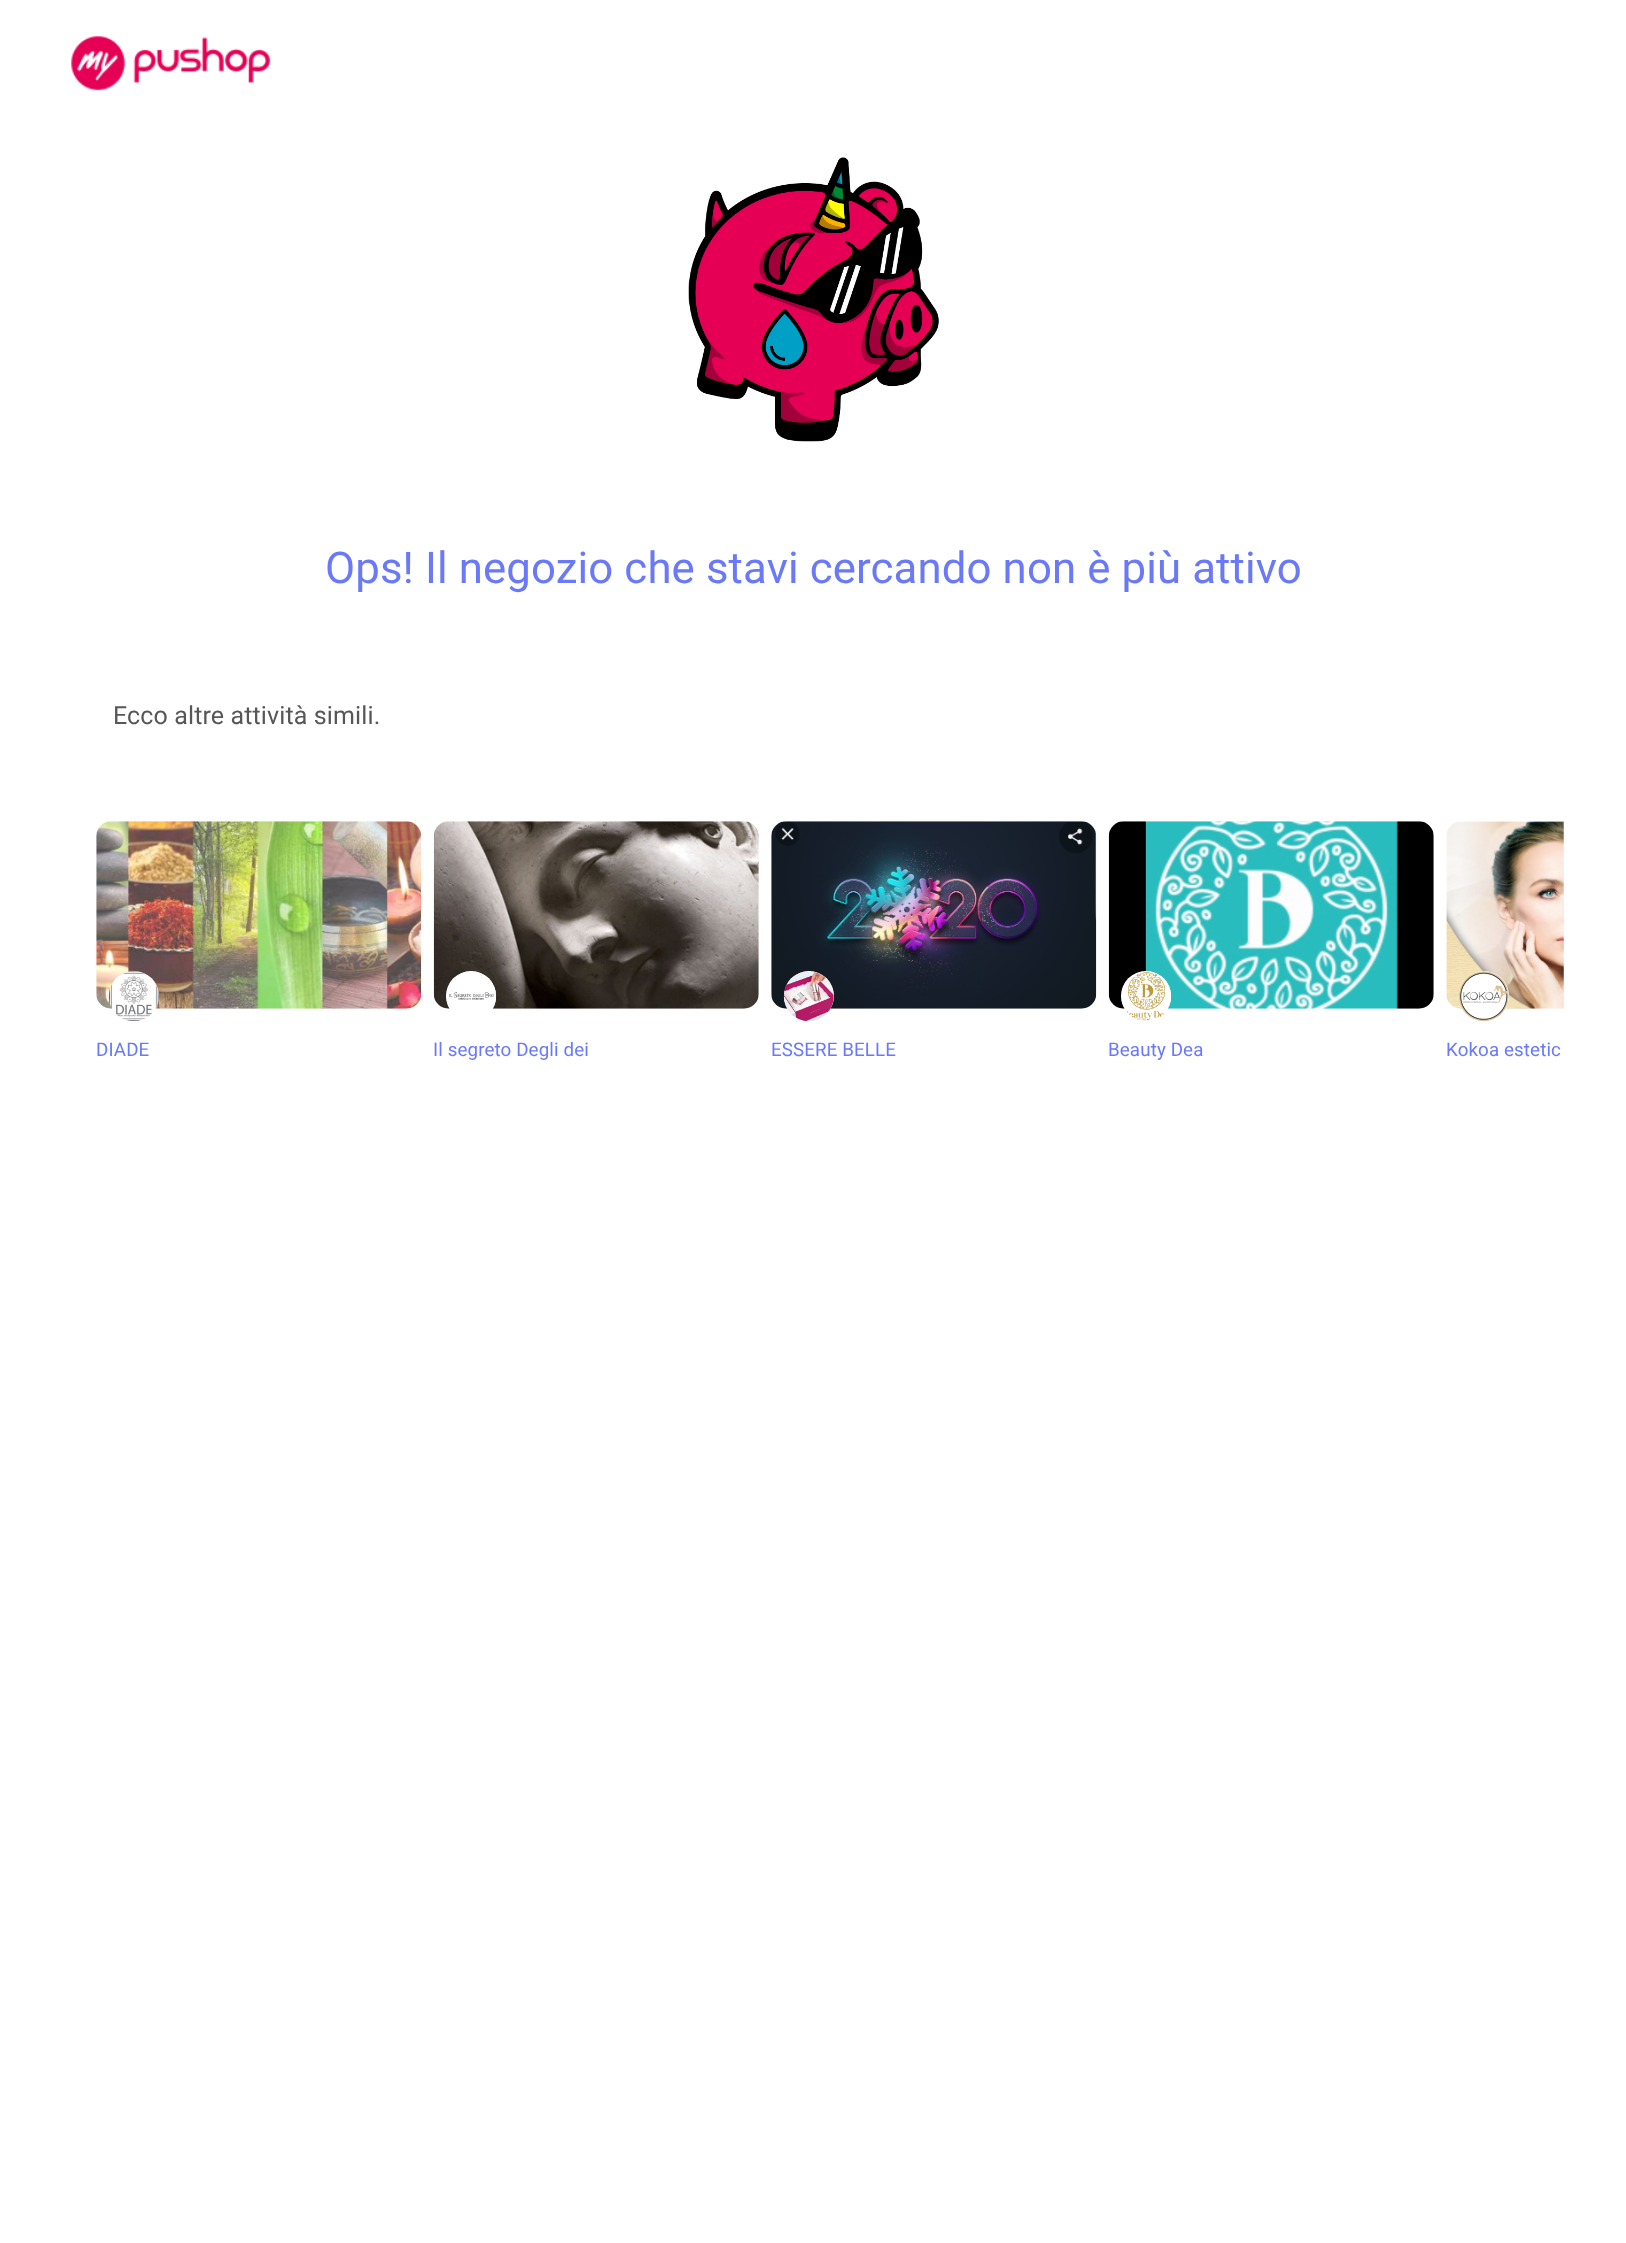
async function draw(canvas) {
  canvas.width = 1626
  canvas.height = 2243
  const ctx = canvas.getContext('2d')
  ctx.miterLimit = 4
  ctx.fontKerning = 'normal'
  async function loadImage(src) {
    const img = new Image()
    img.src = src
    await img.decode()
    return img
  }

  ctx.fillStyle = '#fff'
  ctx.fillRect(0, 0, 1626, 2243)
  ctx.drawImage(await loadImage('image0.png'), 71, 36, 200, 55)
  ctx.drawImage(await loadImage('image1.png'), 688, 157, 251, 285)
  ctx.letterSpacing = '0.12px'
  ctx.font = '43.75px Roboto'
  ctx.fillStyle = '#6979f8'
  ctx.fillText('Ops! Il negozio che stavi cercando non è più attivo', 325, 583)
  ctx.font = '25px Roboto'
  ctx.fillStyle = '#575757'
  ctx.fillText('Ecco altre attività simili.', 113, 724)
  ctx.drawImage(await loadImage('image2.png'), 96, 821, 326, 188)
  ctx.fillStyle = '#fff'
  ctx.beginPath()
  ctx.arc(134, 996, 25, 0, 2 * Math.PI)
  ctx.fill()
  ctx.drawImage(await loadImage('image3.png'), 108, 971, 51, 51)
  ctx.font = '18.75px Roboto'
  ctx.fillStyle = '#6979f8'
  ctx.fillText('DIADE', 96, 1056)
  ctx.drawImage(await loadImage('image4.png'), 433, 821, 326, 188)
  ctx.fillStyle = '#fff'
  ctx.beginPath()
  ctx.arc(471, 996, 25, 0, 2 * Math.PI)
  ctx.fill()
  ctx.drawImage(await loadImage('image5.png'), 446, 971, 51, 38)
  ctx.fillStyle = '#6979f8'
  ctx.fillText('Il segreto Degli dei', 433, 1056)
  ctx.drawImage(await loadImage('image6.png'), 771, 821, 326, 188)
  ctx.fillStyle = '#fff'
  ctx.beginPath()
  ctx.arc(809, 996, 25, 0, 2 * Math.PI)
  ctx.fill()
  ctx.drawImage(await loadImage('image7.png'), 783, 971, 51, 50)
  ctx.fillStyle = '#6979f8'
  ctx.fillText('ESSERE BELLE', 771, 1056)
  ctx.drawImage(await loadImage('image8.png'), 1108, 821, 326, 188)
  ctx.fillStyle = '#fff'
  ctx.beginPath()
  ctx.arc(1146, 996, 25, 0, 2 * Math.PI)
  ctx.fill()
  ctx.drawImage(await loadImage('image9.png'), 1121, 971, 51, 50)
  ctx.fillStyle = '#6979f8'
  ctx.fillText('Beauty Dea', 1108, 1056)
  ctx.drawImage(await loadImage('image10.png'), 1446, 821, 118, 188)
  ctx.fillStyle = '#fff'
  ctx.beginPath()
  ctx.arc(1484, 996, 25, 0, 2 * Math.PI)
  ctx.fill()
  ctx.drawImage(await loadImage('image11.png'), 1459, 971, 50, 51)
  ctx.fillStyle = '#6979f8'
  ctx.fillText('Kokoa estetic', 1446, 1056)
}

draw(document.querySelector('canvas'))
